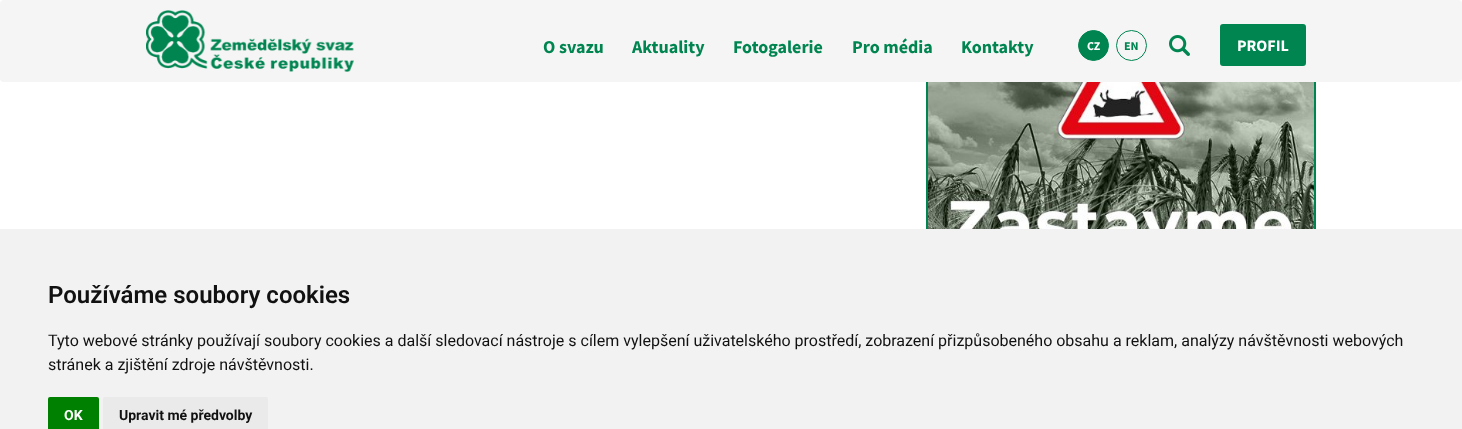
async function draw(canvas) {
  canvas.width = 1462
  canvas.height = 429
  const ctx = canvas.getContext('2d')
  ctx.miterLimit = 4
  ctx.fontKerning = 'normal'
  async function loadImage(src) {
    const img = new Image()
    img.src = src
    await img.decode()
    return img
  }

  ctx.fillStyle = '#fff'
  ctx.fillRect(0, 0, 1462, 429)
  ctx.strokeStyle = '#008551'
  ctx.lineWidth = 2
  ctx.strokeRect(927, -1, 388, 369)
  ctx.drawImage(await loadImage('image0.png'), 928, 82, 386, 147)
  ctx.fillStyle = '#f5f5f5'
  ctx.beginPath()
  ctx.roundRect(0, 0, 1462, 82, 4)
  ctx.fill()
  ctx.drawImage(await loadImage('image1.png'), 146, 10, 208, 62)
  ctx.font = 'bold 18px Source Sans Pro'
  ctx.fillStyle = '#008551'
  ctx.fillText('O svazu', 543, 53)
  ctx.fillText('Aktuality', 632, 53)
  ctx.fillText('Fotogalerie', 733, 53)
  ctx.fillText('Pro média', 852, 53)
  ctx.fillText('Kontakty', 961, 53)
  ctx.beginPath()
  ctx.arc(1093.5, 45.5, 15, 0, 2 * Math.PI)
  ctx.fill()
  ctx.lineWidth = 1
  ctx.stroke()
  ctx.font = 'bold 12px Source Sans Pro'
  ctx.fillStyle = '#fff'
  ctx.fillText('CZ', 1087, 50)
  ctx.beginPath()
  ctx.arc(1131.5, 45.5, 15, 0, 2 * Math.PI)
  ctx.stroke()
  ctx.fillStyle = '#008551'
  ctx.fillText('EN', 1124, 50)
  ctx.drawImage(await loadImage('image2.png'), 1169, 35, 21, 21)
  ctx.beginPath()
  ctx.roundRect(1221, 25, 84, 40, 2)
  ctx.fill()
  ctx.lineWidth = 2
  ctx.stroke()
  ctx.font = 'bold 16px Source Sans Pro'
  ctx.fillStyle = '#fff'
  ctx.fillText('PROFIL', 1237, 51)
  ctx.fillStyle = '#f2f2f2'
  ctx.fillRect(0, 229, 1462, 200)
  ctx.font = '600 24px Roboto'
  ctx.fillStyle = '#111'
  ctx.fillText('Používáme soubory cookies', 48, 303)
  ctx.font = '16px Roboto'
  ctx.fillText('Tyto webové stránky používají soubory cookies a další sledovací nástroje s cílem vylepšení uživatelského prostředí, zobrazení přizpůsobeného obsahu a reklam, analýzy návštěvnosti webových', 48, 346)
  ctx.fillText('stránek a zjištění zdroje návštěvnosti.', 48, 370)
  ctx.fillStyle = '#008000'
  ctx.beginPath()
  ctx.roundRect(48, 397, 51, 32, [2, 2, 0, 0])
  ctx.fill()
  ctx.font = 'bold 14px Roboto'
  ctx.fillStyle = '#fff'
  ctx.fillText('OK', 64, 420)
  ctx.fillStyle = '#eaeaea'
  ctx.beginPath()
  ctx.roundRect(103, 397, 165, 32, [2, 2, 0, 0])
  ctx.fill()
  ctx.fillStyle = '#111'
  ctx.fillText('Upravit mé předvolby', 119, 420)
}

draw(document.querySelector('canvas'))
